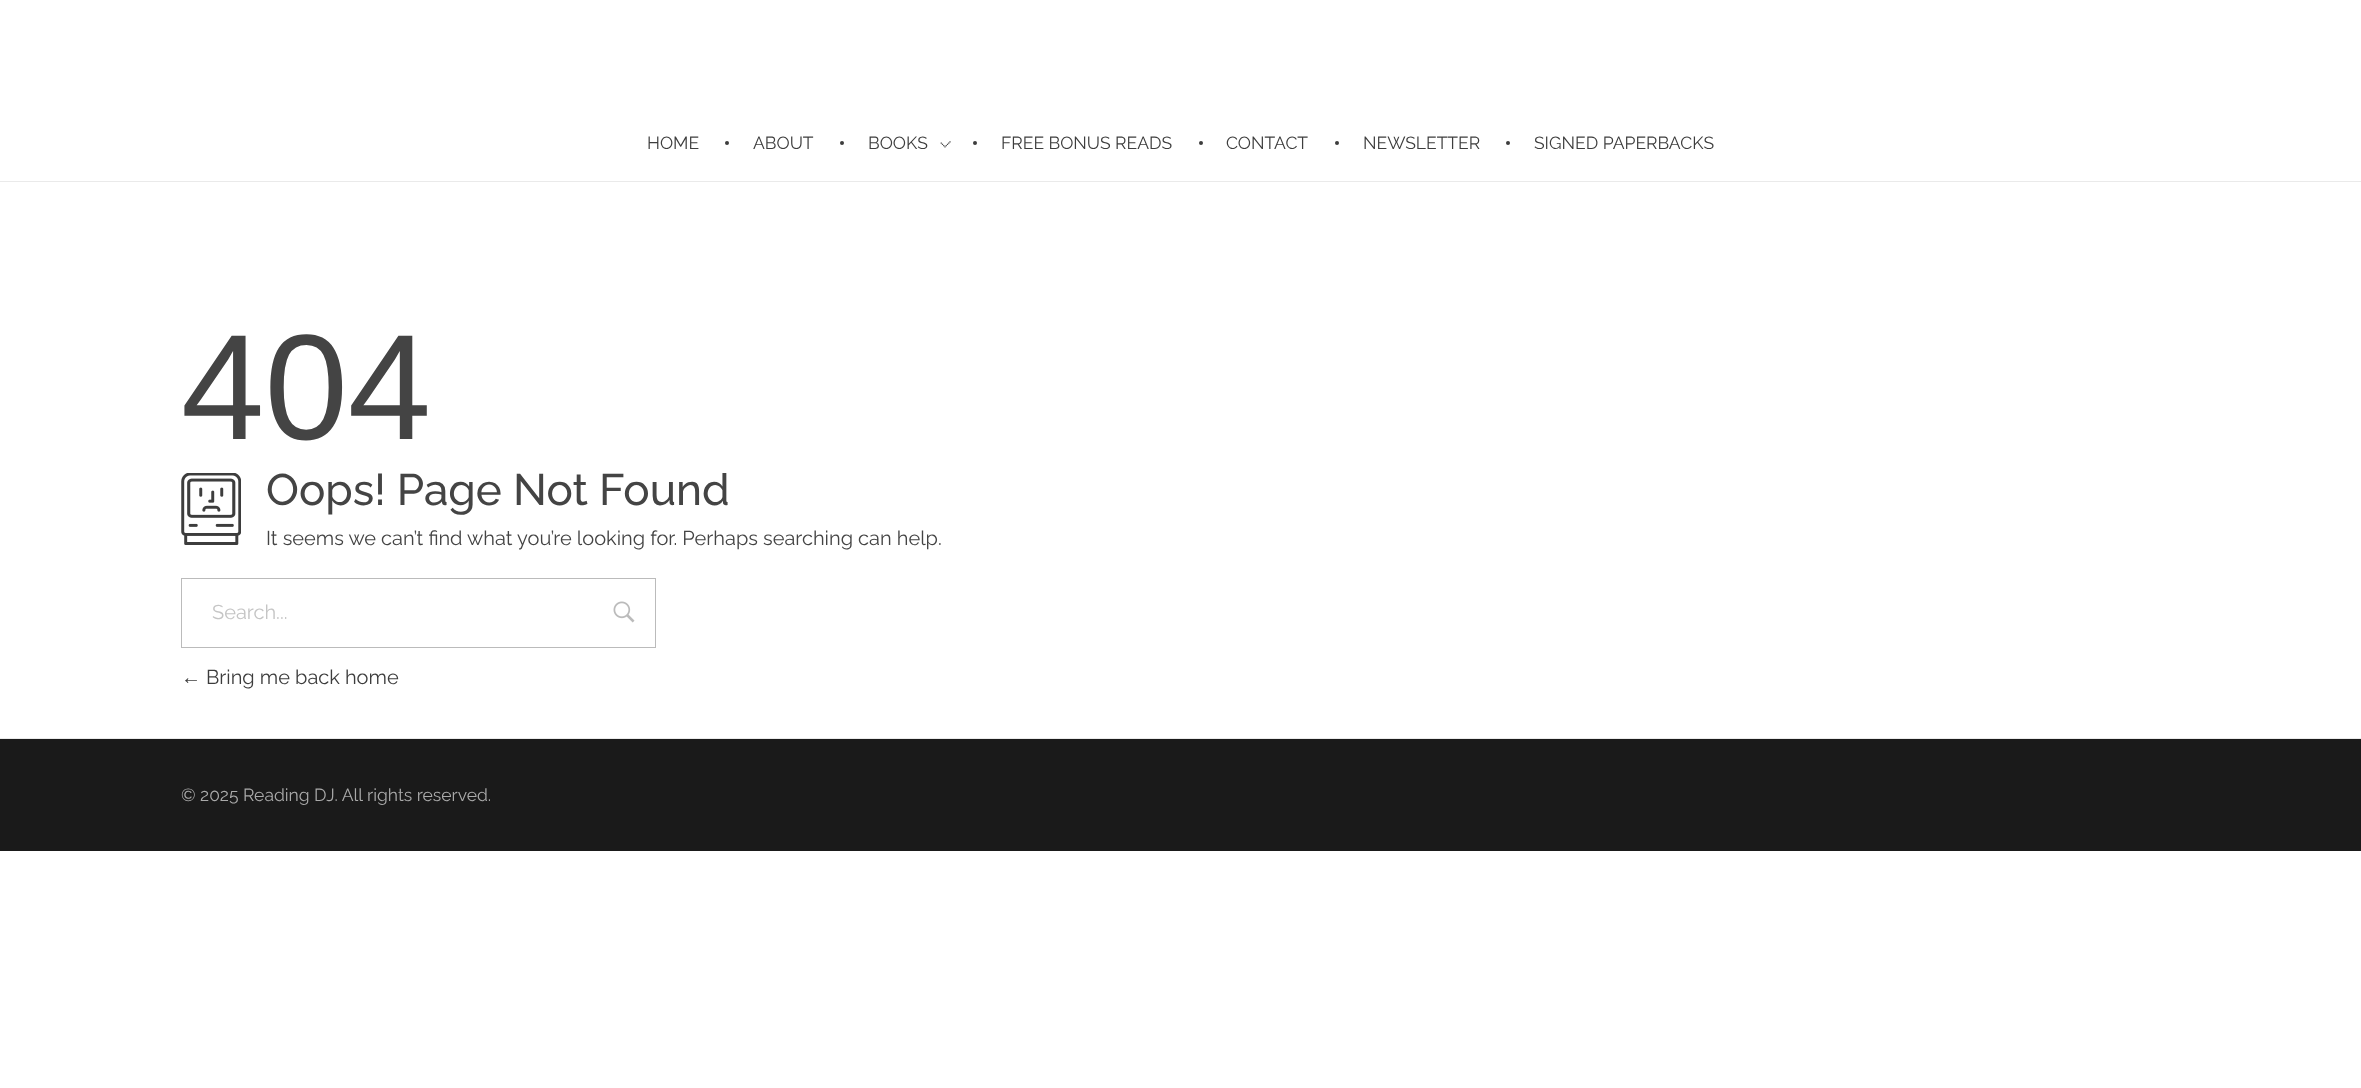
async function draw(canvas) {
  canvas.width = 2361
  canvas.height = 1088
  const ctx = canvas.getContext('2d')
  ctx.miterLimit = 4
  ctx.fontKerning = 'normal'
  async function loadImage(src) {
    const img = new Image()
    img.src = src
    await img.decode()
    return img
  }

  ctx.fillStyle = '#fff'
  ctx.fillRect(0, 0, 2361, 1088)
  ctx.fillStyle = '#eaeaea'
  ctx.fillRect(0, 181, 2361, 1)
  ctx.font = '17.5px Raleway'
  ctx.fillStyle = '#3d3d3d'
  ctx.fillText('HOME', 647, 149)
  ctx.beginPath()
  ctx.arc(727, 143, 2, 0, 2 * Math.PI)
  ctx.fill()
  ctx.fillText('ABOUT', 753, 149)
  ctx.beginPath()
  ctx.arc(842, 143, 2, 0, 2 * Math.PI)
  ctx.fill()
  ctx.fillText('BOOKS', 868, 149)
  ctx.drawImage(await loadImage('image0.png'), 940, 141, 11, 7)
  ctx.beginPath()
  ctx.arc(975, 143, 2, 0, 2 * Math.PI)
  ctx.fill()
  ctx.fillText('FREE BONUS READS', 1001, 149)
  ctx.beginPath()
  ctx.arc(1201, 143, 2, 0, 2 * Math.PI)
  ctx.fill()
  ctx.fillText('CONTACT', 1226, 149)
  ctx.beginPath()
  ctx.arc(1337, 143, 2, 0, 2 * Math.PI)
  ctx.fill()
  ctx.fillText('NEWSLETTER', 1363, 149)
  ctx.beginPath()
  ctx.arc(1508, 143, 2, 0, 2 * Math.PI)
  ctx.fill()
  ctx.fillText('SIGNED PAPERBACKS', 1534, 149)
  ctx.font = '150px Liberation Sans'
  ctx.fillStyle = '#444'
  ctx.fillText('404', 181, 439)
  ctx.drawImage(await loadImage('image1.png'), 181, 473, 60, 72)
  ctx.font = '500 44px Raleway'
  ctx.fillText('Oops! Page Not Found', 266, 505)
  ctx.font = '20px Raleway'
  ctx.fillText('It seems we can’t find what you’re looking for. Perhaps searching can help.', 266, 545)
  ctx.strokeStyle = '#bbb'
  ctx.strokeRect(181.5, 578.5, 474, 69)
  ctx.fillStyle = '#c5c5c5'
  ctx.fillText('Search...', 212, 619)
  ctx.drawImage(await loadImage('image2.png'), 613, 601, 22, 22)
  ctx.font = '20px Liberation Sans'
  ctx.fillStyle = '#3d3d3d'
  ctx.fillText('←', 181, 684)
  ctx.font = '20px Raleway'
  ctx.fillText('Bring me back home', 206, 684)
  ctx.fillStyle = '#1a1a1a'
  ctx.fillRect(0, 739, 2361, 112)
  ctx.fillStyle = '#eaeaea'
  ctx.fillRect(0, 738, 2361, 1)
  ctx.font = '17.5px Raleway'
  ctx.fillStyle = '#aaa'
  ctx.fillText('© 2025 Reading DJ. All rights reserved.', 181, 801)
}

draw(document.querySelector('canvas'))
